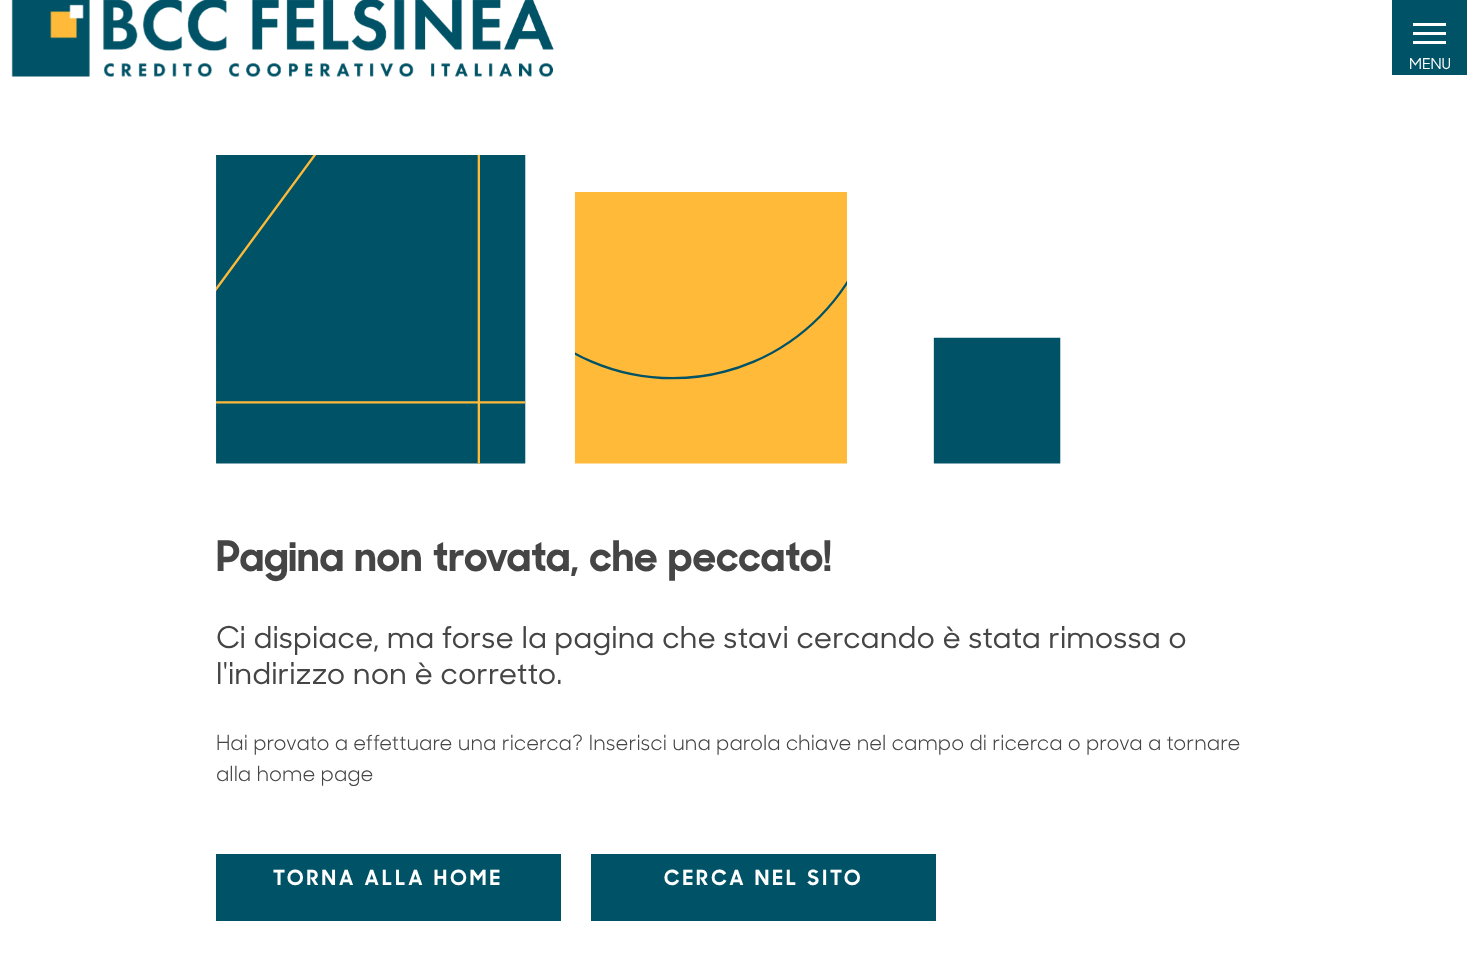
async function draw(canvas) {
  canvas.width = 1467
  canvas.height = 972
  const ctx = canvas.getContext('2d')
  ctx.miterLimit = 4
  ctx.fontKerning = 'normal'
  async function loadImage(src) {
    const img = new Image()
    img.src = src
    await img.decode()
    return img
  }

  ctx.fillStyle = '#fff'
  ctx.fillRect(0, 0, 1467, 972)
  ctx.drawImage(await loadImage('image0.png'), 11, 0, 543, 77)
  ctx.fillStyle = '#005366'
  ctx.fillRect(1392, 0, 75, 75)
  ctx.fillStyle = '#fff'
  ctx.fillRect(1413, 23, 33, 3)
  ctx.fillRect(1413, 32, 33, 3)
  ctx.fillRect(1413, 41, 33, 3)
  ctx.font = '500 15px "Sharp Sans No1"'
  ctx.fillText('MENU', 1409, 69)
  ctx.drawImage(await loadImage('image1.png'), 216, 155, 845, 309)
  ctx.font = 'bold 42px "Sharp Sans No1"'
  ctx.fillStyle = '#454545'
  ctx.fillText('Pagina non trovata, che peccato!', 216, 571)
  ctx.font = '500 30px "Sharp Sans No1"'
  ctx.fillText('Ci dispiace, ma forse la pagina che stavi cercando è stata rimossa o', 216, 648)
  ctx.fillText('l\'indirizzo non è corretto.', 216, 684)
  ctx.font = '20.9px "Sharp Sans No1"'
  ctx.fillText('Hai provato a effettuare una ricerca? Inserisci una parola chiave nel campo di ricerca o prova a tornare', 216, 750)
  ctx.fillText('alla home page', 216, 781)
  ctx.fillStyle = '#005366'
  ctx.fillRect(216, 854, 345, 67)
  ctx.letterSpacing = '3.1px'
  ctx.font = 'bold 20.9px "Sharp Sans No1"'
  ctx.fillStyle = '#fff'
  ctx.fillText('TORNA ALLA HOME', 273, 885)
  ctx.fillStyle = '#005366'
  ctx.fillRect(591, 854, 345, 67)
  ctx.fillStyle = '#fff'
  ctx.fillText('CERCA NEL SITO', 664, 885)
}

draw(document.querySelector('canvas'))
